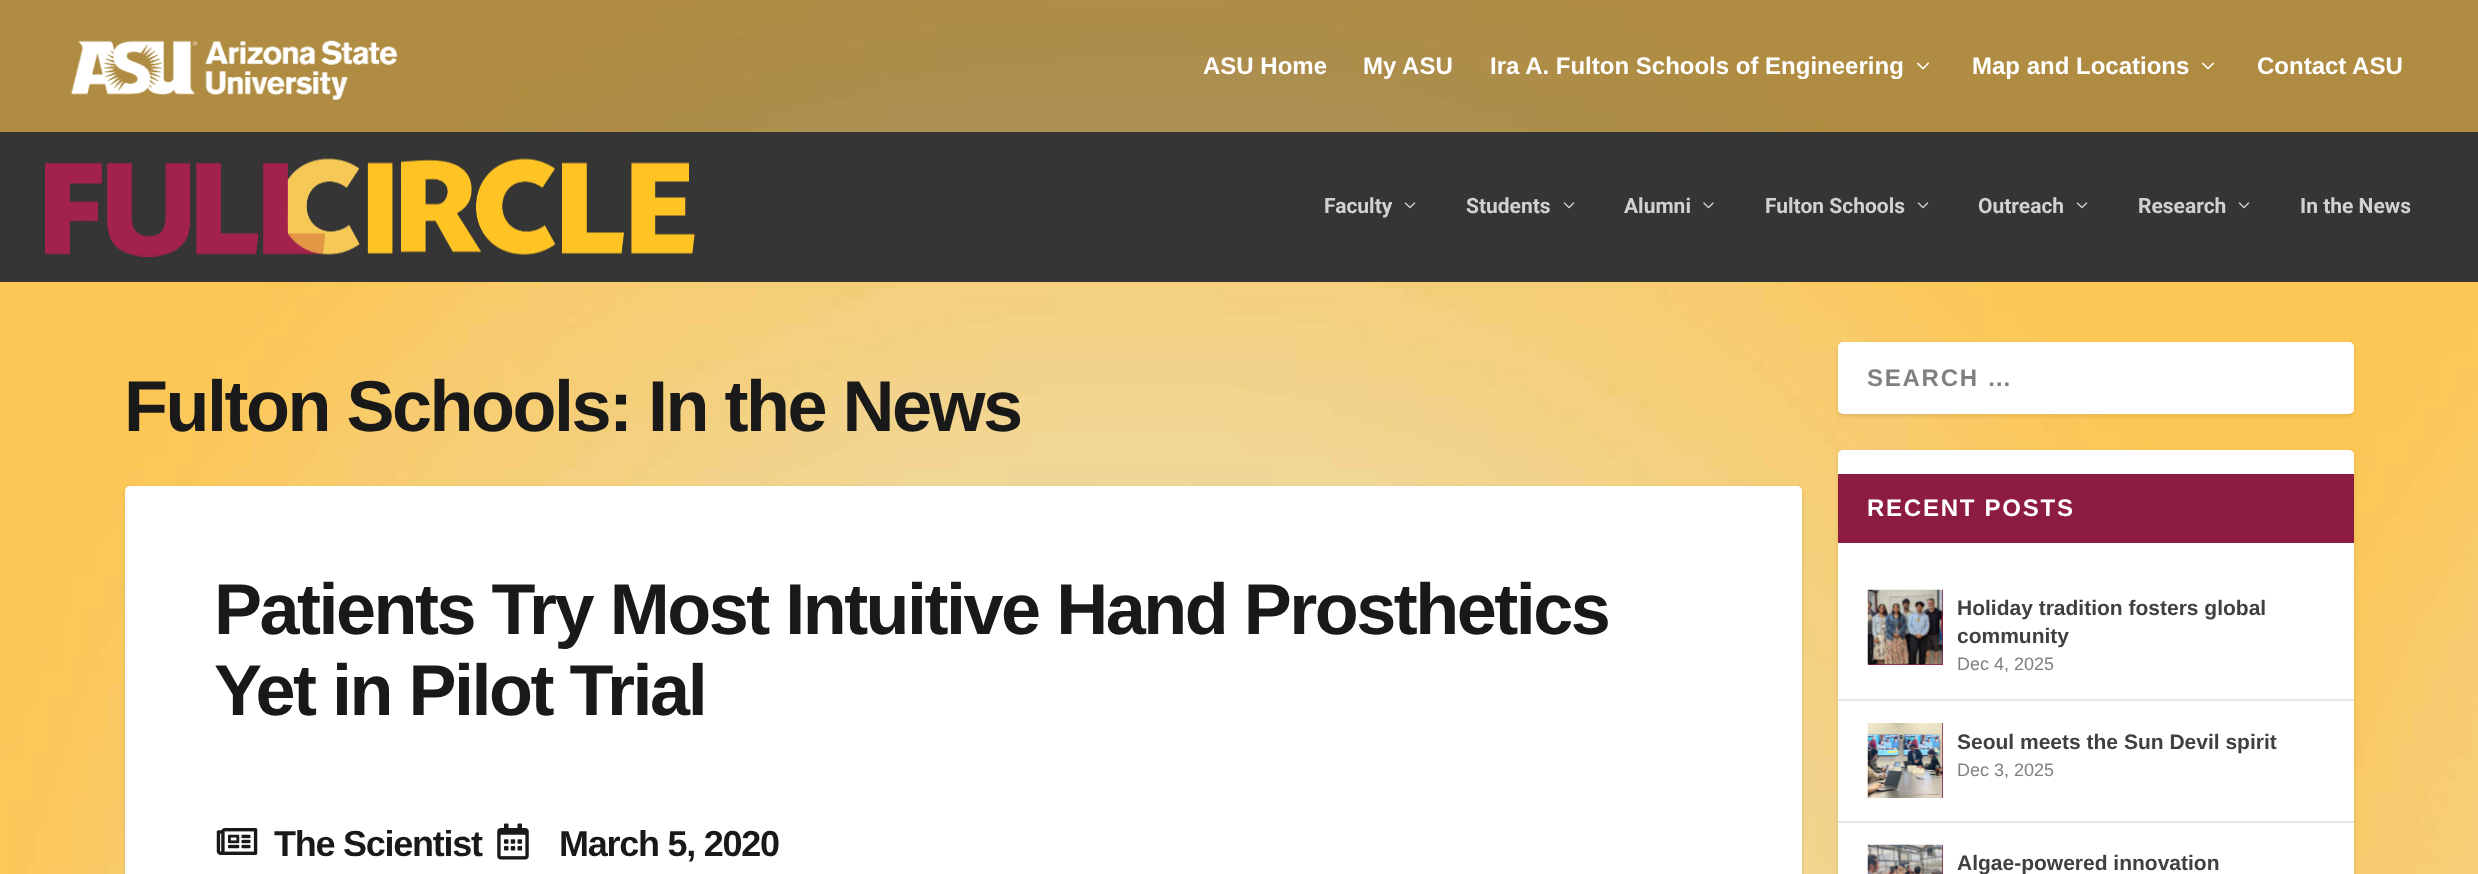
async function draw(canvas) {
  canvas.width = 2478
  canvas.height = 874
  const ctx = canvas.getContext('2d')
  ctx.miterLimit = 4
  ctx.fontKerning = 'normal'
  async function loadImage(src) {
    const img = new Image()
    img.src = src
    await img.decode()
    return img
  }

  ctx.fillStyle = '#fff'
  ctx.fillRect(0, 0, 2478, 874)
  ctx.drawImage(await loadImage('image0.png'), 0, 0, 2478, 874)
  ctx.fillStyle = '#19191957'
  ctx.fillRect(0, 0, 2478, 132)
  ctx.drawImage(await loadImage('image1.png'), 70, 40, 328, 60)
  ctx.font = 'bold 24px Liberation Sans'
  ctx.fillStyle = '#fff'
  ctx.fillText('ASU Home', 1203, 74)
  ctx.fillText('My ASU', 1363, 74)
  ctx.fillText('Ira A. Fulton Schools of Engineering', 1490, 74)
  ctx.drawImage(await loadImage('image2.png'), 1917, 62, 12, 8)
  ctx.fillText('Map and Locations', 1972, 74)
  ctx.drawImage(await loadImage('image2.png'), 2202, 62, 12, 8)
  ctx.fillText('Contact ASU', 2257, 74)
  ctx.fillStyle = '#353535'
  ctx.fillRect(0, 132, 2478, 150)
  ctx.drawImage(await loadImage('image3.png'), 45, 158, 650, 99)
  ctx.font = 'bold 21px Roboto'
  ctx.fillStyle = '#d1d1d1'
  ctx.fillText('Faculty', 1324, 213)
  ctx.drawImage(await loadImage('image4.png'), 1404, 202, 12, 7)
  ctx.fillText('Students', 1466, 213)
  ctx.drawImage(await loadImage('image4.png'), 1563, 202, 12, 7)
  ctx.fillText('Alumni', 1624, 213)
  ctx.drawImage(await loadImage('image5.png'), 1703, 202, 11, 7)
  ctx.fillText('Fulton Schools', 1765, 213)
  ctx.drawImage(await loadImage('image4.png'), 1917, 202, 12, 7)
  ctx.fillText('Outreach', 1978, 213)
  ctx.drawImage(await loadImage('image4.png'), 2076, 202, 12, 7)
  ctx.fillText('Research', 2138, 213)
  ctx.drawImage(await loadImage('image4.png'), 2238, 202, 12, 7)
  ctx.fillText('In the News', 2300, 213)
  ctx.letterSpacing = '-2.5px'
  ctx.font = 'bold 72px Liberation Sans'
  ctx.fillStyle = '#191919'
  ctx.fillText('Fulton Schools: In the News', 124, 431)
  ctx.fillStyle = '#0000001a'
  ctx.filter = 'blur(2px)'
  ctx.beginPath()
  ctx.roundRect(125, 488, 1677, 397, 5)
  ctx.fill()
  ctx.filter = 'none'
  ctx.fillStyle = '#fff'
  ctx.beginPath()
  ctx.roundRect(125, 486, 1677, 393, 5)
  ctx.fill()
  ctx.fillStyle = '#191919'
  ctx.fillText('Patients Try Most Intuitive Hand Prosthetics', 214, 634)
  ctx.fillText('Yet in Pilot Trial', 214, 715)
  ctx.drawImage(await loadImage('image6.png'), 216, 828, 42, 27)
  ctx.letterSpacing = '-1.25px'
  ctx.font = 'bold 36px Liberation Sans'
  ctx.fillText('The Scientist', 274, 856)
  ctx.drawImage(await loadImage('image7.png'), 497, 823, 32, 37)
  ctx.fillText('March 5, 2020', 559, 856)
  ctx.fillStyle = '#0000001a'
  ctx.filter = 'blur(2px)'
  ctx.beginPath()
  ctx.roundRect(1838, 344, 516, 72, 5)
  ctx.fill()
  ctx.filter = 'none'
  ctx.fillStyle = '#fff'
  ctx.beginPath()
  ctx.roundRect(1838, 342, 516, 72, 5)
  ctx.fill()
  ctx.letterSpacing = '1.75px'
  ctx.font = 'bold 24px Liberation Sans'
  ctx.fillStyle = '#808080'
  ctx.fillText('SEARCH …', 1867, 386)
  ctx.fillStyle = '#0000001a'
  ctx.filter = 'blur(2px)'
  ctx.beginPath()
  ctx.roundRect(1838, 452, 516, 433, 5)
  ctx.fill()
  ctx.filter = 'none'
  ctx.fillStyle = '#fff'
  ctx.beginPath()
  ctx.roundRect(1838, 450, 516, 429, 5)
  ctx.fill()
  ctx.fillStyle = '#8c1d40'
  ctx.fillRect(1838, 474, 516, 69)
  ctx.fillStyle = '#fff'
  ctx.fillText('RECENT POSTS', 1867, 516)
  ctx.fillStyle = '#e6e6e6'
  ctx.fillRect(1838, 699, 516, 2)
  ctx.fillStyle = '#8c1d40'
  ctx.fillRect(1868, 590, 75, 75)
  ctx.drawImage(await loadImage('image8.png'), 1867, 589, 76, 76)
  ctx.letterSpacing = '0px'
  ctx.font = 'bold 21px Liberation Sans'
  ctx.fillStyle = '#404040'
  ctx.fillText('Holiday tradition fosters global', 1957, 615)
  ctx.fillText('community', 1957, 643)
  ctx.font = '18px Liberation Sans'
  ctx.fillStyle = '#808080'
  ctx.fillText('Dec 4, 2025', 1957, 670)
  ctx.fillStyle = '#e6e6e6'
  ctx.fillRect(1838, 821, 516, 2)
  ctx.fillStyle = '#8c1d40'
  ctx.fillRect(1942, 723, 1, 75)
  ctx.drawImage(await loadImage('image9.png'), 1867, 723, 76, 75)
  ctx.font = 'bold 21px Liberation Sans'
  ctx.fillStyle = '#404040'
  ctx.fillText('Seoul meets the Sun Devil spirit', 1957, 749)
  ctx.font = '18px Liberation Sans'
  ctx.fillStyle = '#808080'
  ctx.fillText('Dec 3, 2025', 1957, 776)
  ctx.fillStyle = '#8c1d40'
  ctx.fillRect(1942, 845, 1, 29)
  ctx.drawImage(await loadImage('image10.png'), 1867, 844, 76, 30)
  ctx.font = 'bold 21px Liberation Sans'
  ctx.fillStyle = '#404040'
  ctx.fillText('Algae-powered innovation', 1957, 870)
}

draw(document.querySelector('canvas'))
